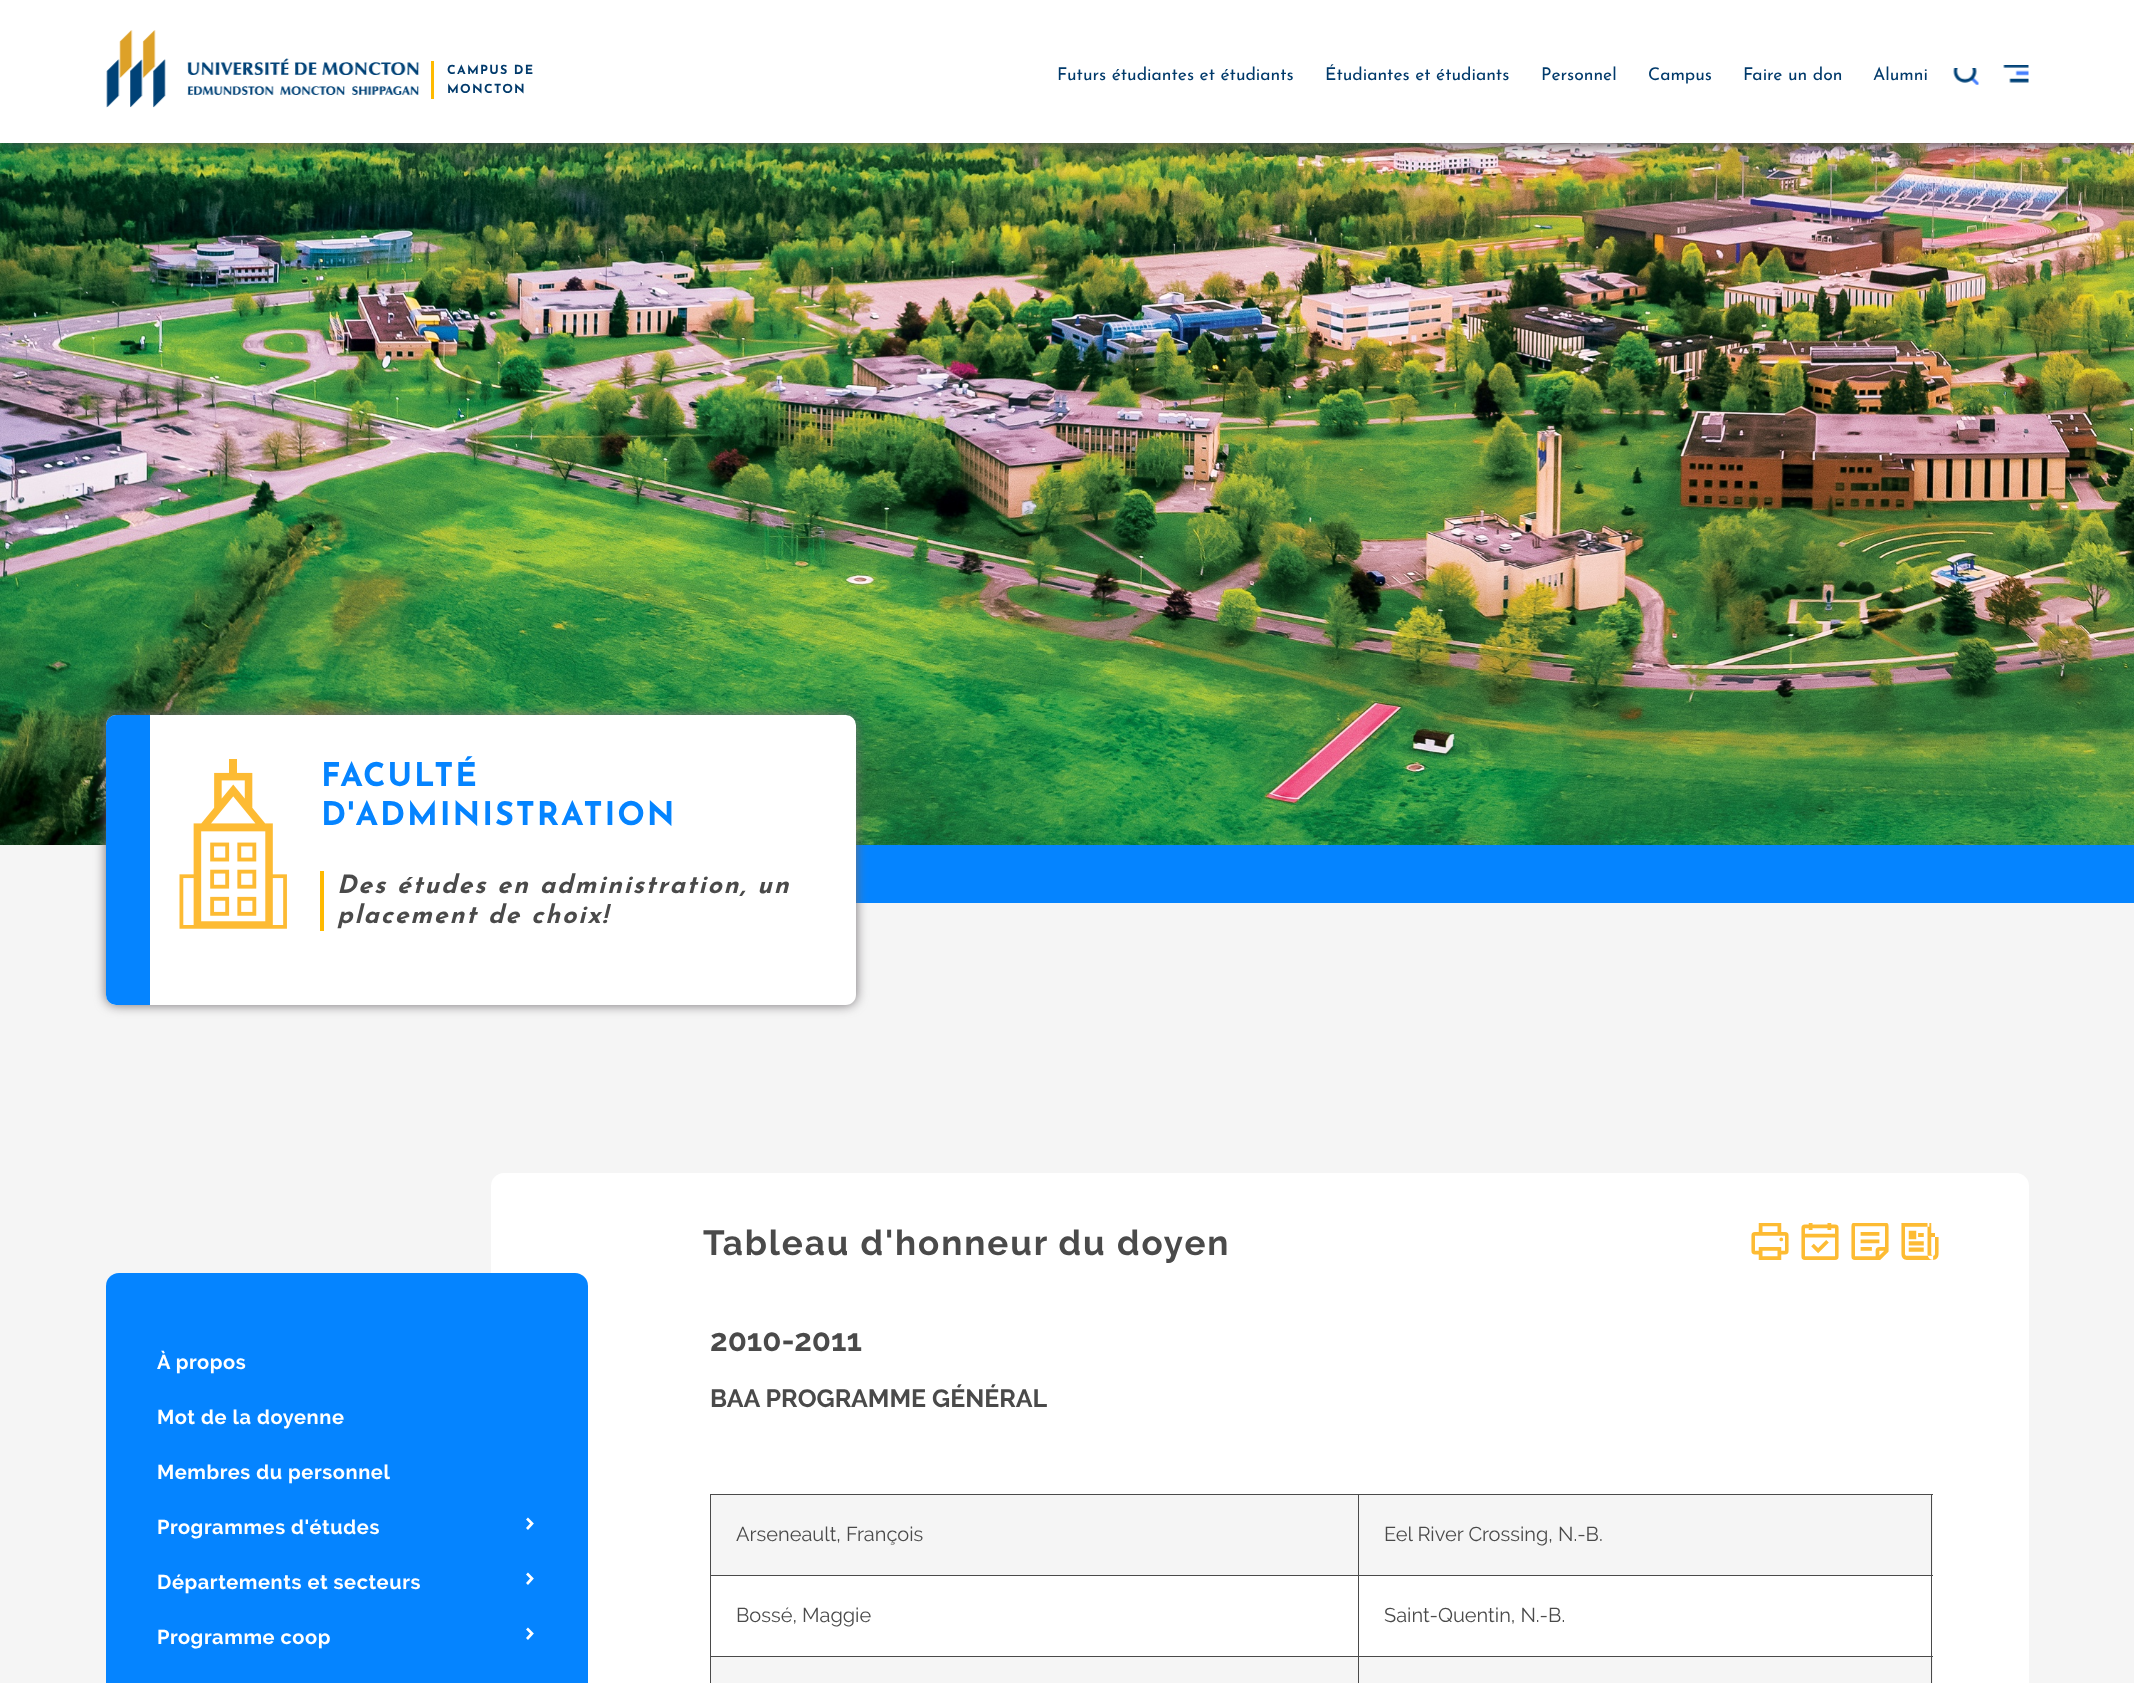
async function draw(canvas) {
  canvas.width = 2134
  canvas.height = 1683
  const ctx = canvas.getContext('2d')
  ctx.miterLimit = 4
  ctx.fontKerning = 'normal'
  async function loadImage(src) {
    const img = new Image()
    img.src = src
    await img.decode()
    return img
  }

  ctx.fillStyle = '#f5f5f5'
  ctx.fillRect(0, 0, 2134, 1683)
  ctx.drawImage(await loadImage('image3.png'), 0, 143, 2134, 702)
  ctx.fillStyle = '#454445'
  ctx.filter = 'blur(7.5px)'
  ctx.beginPath()
  ctx.rect(4, 9, 2127, 135)
  ctx.fill()
  ctx.filter = 'none'
  ctx.fillStyle = '#fff'
  ctx.fillRect(0, 0, 2134, 143)
  ctx.drawImage(await loadImage('image0.png'), 106, 30, 314, 78)
  ctx.fillStyle = '#ffba00'
  ctx.fillRect(431, 61, 3, 38)
  ctx.letterSpacing = '1.25px'
  ctx.font = 'bold 12.5px Josefin Sans'
  ctx.fillStyle = '#013a6b'
  ctx.fillText('CAMPUS DE', 447, 74)
  ctx.fillText('MONCTON', 447, 93)
  ctx.letterSpacing = '0px'
  ctx.font = '17.5px Josefin Sans'
  ctx.fillText('Futurs étudiantes et étudiants', 1057, 80)
  ctx.fillText('Étudiantes et étudiants', 1325, 80)
  ctx.fillText('Personnel', 1541, 80)
  ctx.fillText('Campus', 1648, 80)
  ctx.fillText('Faire un don', 1743, 80)
  ctx.fillText('Alumni', 1873, 80)
  ctx.drawImage(await loadImage('image1.png'), 1953, 68, 26, 17)
  ctx.drawImage(await loadImage('image2.png'), 2003, 65, 26, 18)
  ctx.fillStyle = '#fff'
  ctx.beginPath()
  ctx.roundRect(106, 715, 750, 290, 10)
  ctx.fill()
  ctx.fillStyle = '#0584ff'
  ctx.fillRect(856, 845, 1278, 58)
  ctx.save()
  ctx.beginPath()
  ctx.moveTo(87, 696)
  ctx.lineTo(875, 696)
  ctx.lineTo(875, 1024)
  ctx.lineTo(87, 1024)
  ctx.closePath()
  ctx.moveTo(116, 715)
  ctx.lineTo(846, 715)
  ctx.bezierCurveTo(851.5, 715, 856, 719.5, 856, 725)
  ctx.lineTo(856, 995)
  ctx.bezierCurveTo(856, 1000.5, 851.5, 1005, 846, 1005)
  ctx.lineTo(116, 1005)
  ctx.bezierCurveTo(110.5, 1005, 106, 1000.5, 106, 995)
  ctx.lineTo(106, 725)
  ctx.bezierCurveTo(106, 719.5, 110.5, 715, 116, 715)
  ctx.closePath()
  ctx.clip('evenodd')
  ctx.fillStyle = '#706c70'
  ctx.filter = 'blur(6px)'
  ctx.beginPath()
  ctx.roundRect(106, 715, 750, 290, 10)
  ctx.fill()
  ctx.filter = 'none'
  ctx.restore()
  ctx.beginPath()
  ctx.roundRect(106, 715, 44, 290, [10, 0, 0, 10])
  ctx.fill()
  ctx.drawImage(await loadImage('image4.png'), 179, 759, 108, 170)
  ctx.letterSpacing = '1.9px'
  ctx.font = 'bold 32.5px Josefin Sans'
  ctx.fillText('FACULTÉ', 321, 786)
  ctx.fillText('D\'ADMINISTRATION', 321, 825)
  ctx.fillStyle = '#ffba00'
  ctx.fillRect(320, 871, 4, 60)
  ctx.font = 'italic bold 25px Josefin Sans'
  ctx.fillStyle = '#4a4a4a'
  ctx.fillText('Des études en administration, un', 337, 893)
  ctx.fillText('placement de choix!', 337, 923)
  ctx.fillStyle = '#fff'
  ctx.beginPath()
  ctx.roundRect(491, 1173, 1538, 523, 13)
  ctx.fill()
  ctx.fillStyle = '#0584ff'
  ctx.beginPath()
  ctx.roundRect(106, 1273, 482, 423, 13)
  ctx.fill()
  ctx.letterSpacing = '0.6px'
  ctx.font = 'bold 20px Raleway'
  ctx.fillStyle = '#fff'
  ctx.fillText('À propos', 157, 1369)
  ctx.fillText('Mot de la doyenne', 157, 1424)
  ctx.fillText('Membres du personnel', 157, 1479)
  ctx.fillText('Programmes d\'études', 157, 1534)
  ctx.beginPath()
  ctx.moveTo(527, 1529)
  ctx.lineTo(532, 1523.5)
  ctx.lineTo(527, 1518.5)
  ctx.strokeStyle = '#fff'
  ctx.lineWidth = 2.7
  ctx.stroke()
  ctx.fillText('Départements et secteurs', 157, 1589)
  ctx.beginPath()
  ctx.moveTo(527, 1584)
  ctx.lineTo(532, 1578.5)
  ctx.lineTo(527, 1573.5)
  ctx.stroke()
  ctx.fillText('Programme coop', 157, 1644)
  ctx.beginPath()
  ctx.moveTo(527, 1639)
  ctx.lineTo(532, 1633.5)
  ctx.lineTo(527, 1628.5)
  ctx.stroke()
  ctx.letterSpacing = '1.9px'
  ctx.font = 'bold 35px Raleway'
  ctx.fillStyle = '#4a4a4a'
  ctx.fillText('Tableau d\'honneur du doyen', 703, 1255)
  ctx.drawImage(await loadImage('image5.png'), 1751, 1223, 38, 37)
  ctx.drawImage(await loadImage('image6.png'), 1801, 1223, 38, 37)
  ctx.drawImage(await loadImage('image7.png'), 1851, 1223, 38, 37)
  ctx.drawImage(await loadImage('image8.png'), 1901, 1223, 38, 37)
  ctx.letterSpacing = '0px'
  ctx.font = 'bold 31.25px Raleway'
  ctx.fillText('2010-2011', 710, 1351)
  ctx.font = 'bold 25px Raleway'
  ctx.fillText('BAA PROGRAMME GÉNÉRAL', 710, 1407)
  ctx.fillStyle = '#f5f5f5'
  ctx.fillRect(711, 1495, 1222, 80)
  ctx.fillStyle = '#4a4a4a'
  ctx.fillRect(1358, 1494, 575, 1)
  ctx.fillRect(1358, 1575, 575, 1)
  ctx.fillStyle = '#f5f5f5'
  ctx.fillRect(711, 1657, 1222, 26)
  ctx.fillStyle = '#4a4a4a'
  ctx.fillRect(1358, 1656, 575, 1)
  ctx.fillRect(1358, 1656, 1, 27)
  ctx.fillRect(710, 1656, 649, 1)
  ctx.fillRect(1358, 1575, 1, 83)
  ctx.fillRect(710, 1575, 649, 1)
  ctx.fillRect(1358, 1494, 1, 82)
  ctx.fillRect(710, 1494, 649, 1)
  ctx.fillRect(710, 1656, 1, 27)
  ctx.fillRect(710, 1575, 1, 83)
  ctx.fillRect(710, 1494, 1, 82)
  ctx.font = '20px Raleway'
  ctx.fillText('Arseneault, François', 736, 1541)
  ctx.fillRect(1931, 1656, 1, 27)
  ctx.fillRect(1931, 1575, 1, 83)
  ctx.fillRect(1931, 1494, 1, 82)
  ctx.fillText('Eel River Crossing, N.-B.', 1384, 1541)
  ctx.fillText('Bossé, Maggie', 736, 1622)
  ctx.fillText('Saint-Quentin, N.-B.', 1384, 1622)
}

draw(document.querySelector('canvas'))
